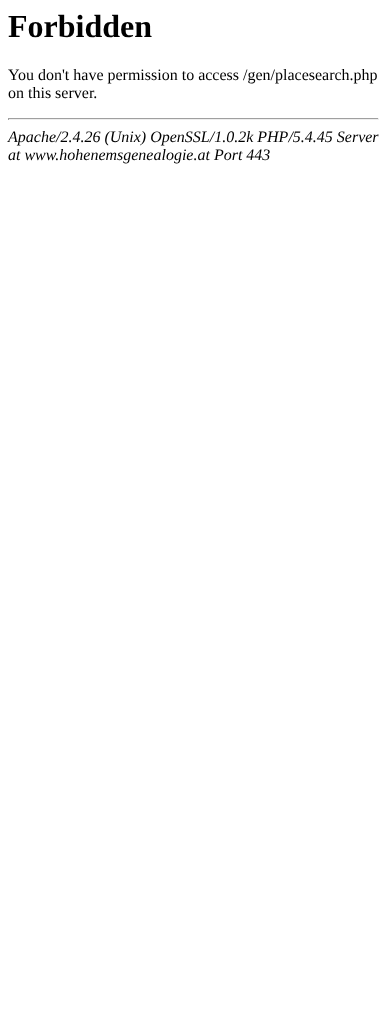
async function draw(canvas) {
  canvas.width = 387
  canvas.height = 1012
  const ctx = canvas.getContext('2d')
  ctx.miterLimit = 4
  ctx.fontKerning = 'normal'

  ctx.fillStyle = '#fff'
  ctx.fillRect(0, 0, 387, 1012)
  ctx.font = 'bold 32px Liberation Serif'
  ctx.fillStyle = '#000'
  ctx.fillText('Forbidden', 8, 37)
  ctx.font = '16px Liberation Serif'
  ctx.fillText('You don\'t have permission to access /gen/placesearch.php', 8, 80)
  ctx.fillText('on this server.', 8, 98)
  ctx.fillStyle = '#9f9f9f'
  ctx.fillRect(8, 118, 371, 1)
  ctx.fillStyle = '#eee'
  ctx.fillRect(378, 118, 1, 2)
  ctx.fillRect(8, 119, 371, 1)
  ctx.fillStyle = '#9f9f9f'
  ctx.fillRect(8, 118, 1, 2)
  ctx.font = 'italic 16px Liberation Serif'
  ctx.fillStyle = '#000'
  ctx.fillText('Apache/2.4.26 (Unix) OpenSSL/1.0.2k PHP/5.4.45 Server', 8, 142)
  ctx.fillText('at www.hohenemsgenealogie.at Port 443', 8, 160)
}

draw(document.querySelector('canvas'))
